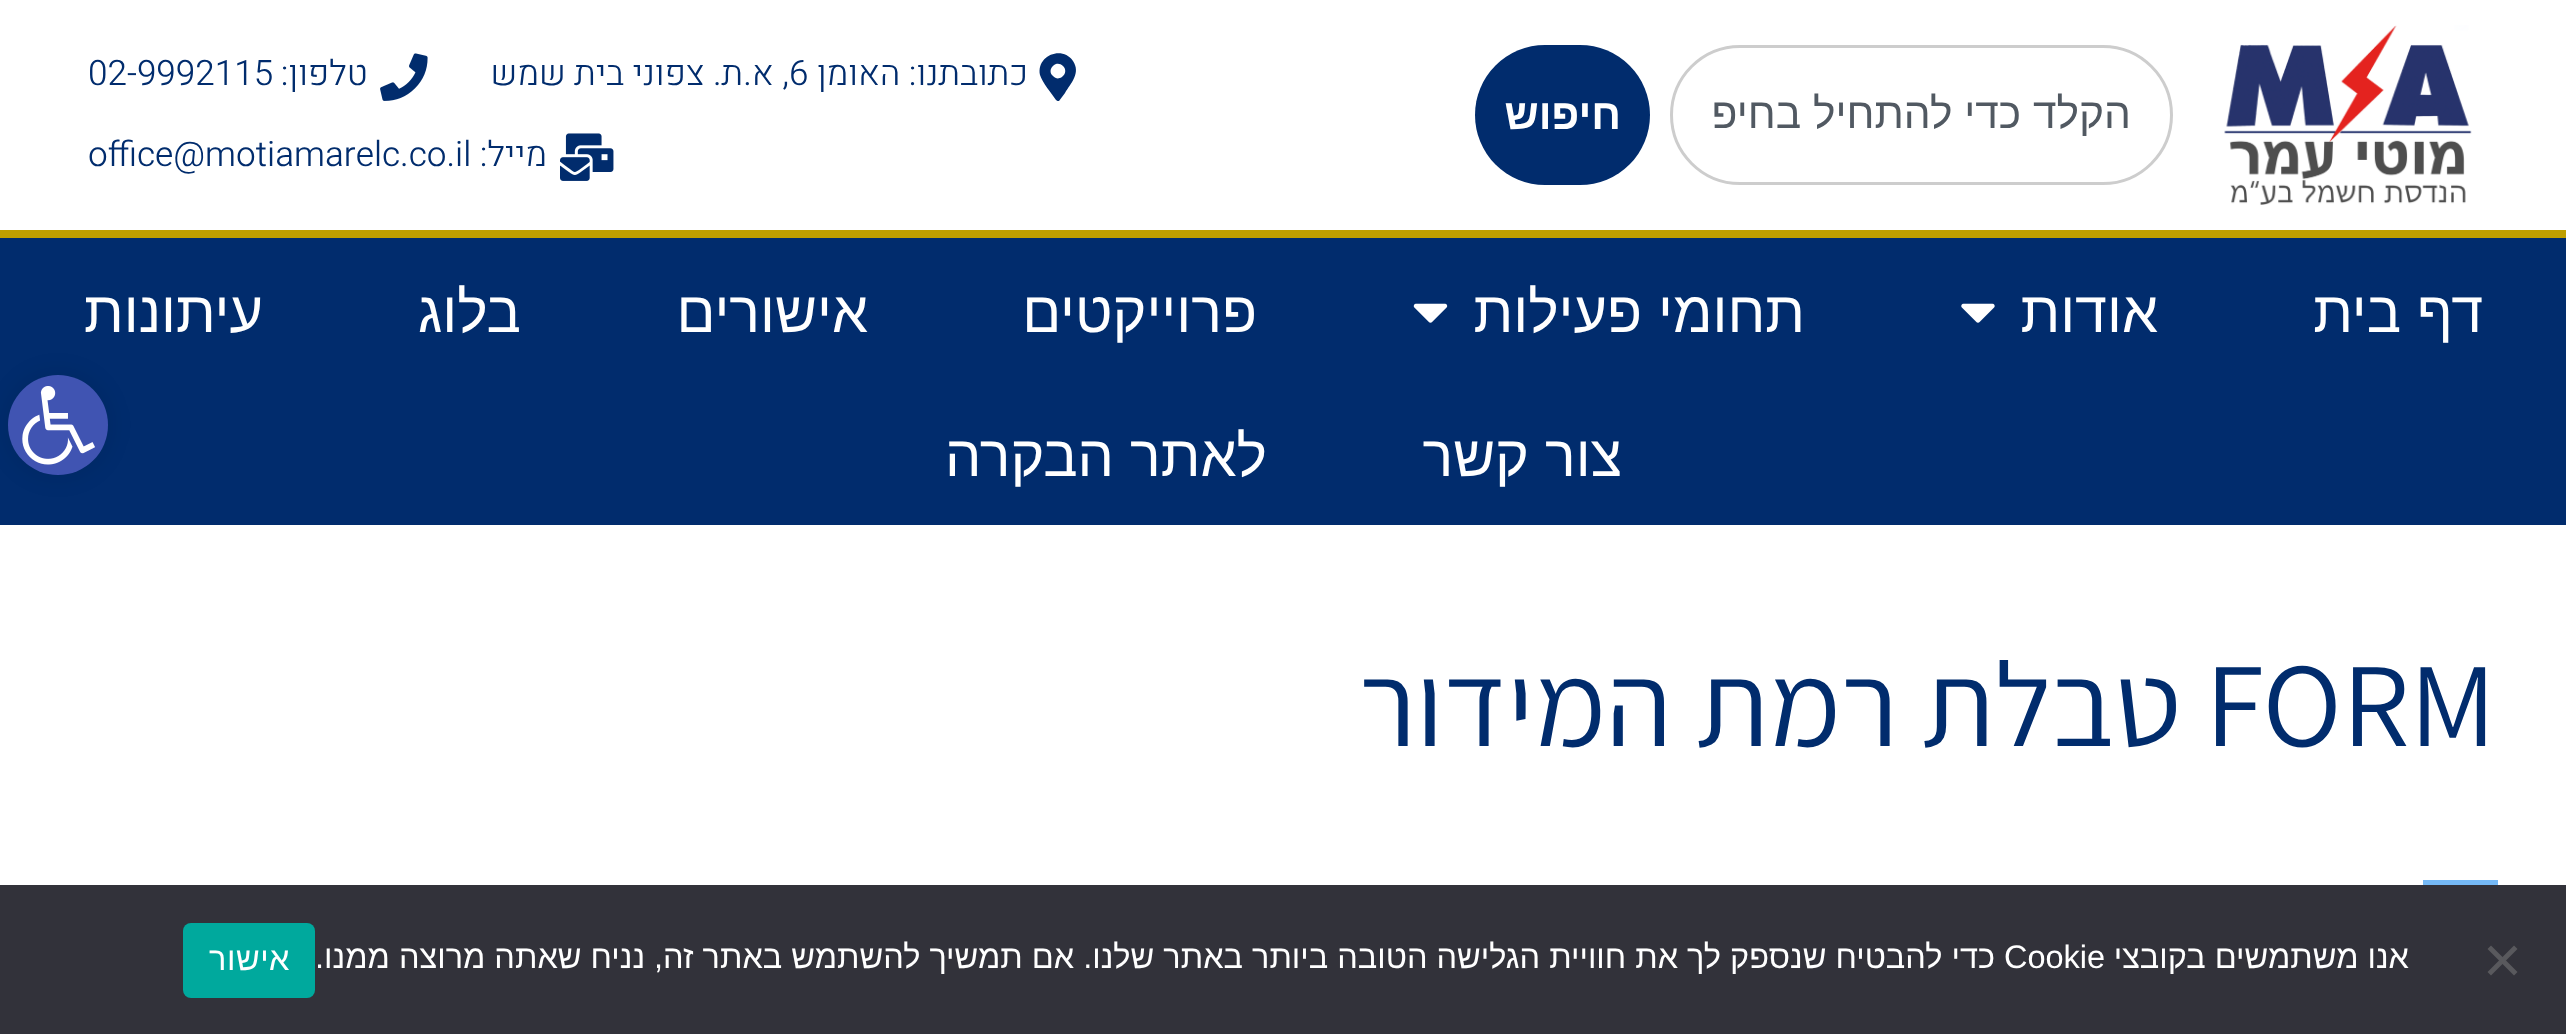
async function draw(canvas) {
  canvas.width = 2566
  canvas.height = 1034
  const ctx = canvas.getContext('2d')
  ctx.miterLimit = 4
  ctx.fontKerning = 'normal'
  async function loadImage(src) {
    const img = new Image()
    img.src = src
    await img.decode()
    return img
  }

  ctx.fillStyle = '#fff'
  ctx.fillRect(0, 0, 2566, 1034)
  ctx.drawImage(await loadImage('image0.png'), 2224, 25, 248, 180)
  ctx.beginPath()
  ctx.roundRect(1671.5, 46.5, 500, 137, 68.5)
  ctx.strokeStyle = '#cdcdcd'
  ctx.lineWidth = 3
  ctx.stroke()
  ctx.save()
  ctx.beginPath()
  ctx.rect(1713, 90, 417, 50)
  ctx.clip()
  ctx.direction = 'rtl'
  ctx.font = '42.5px Liberation Sans'
  ctx.fillStyle = '#515962'
  ctx.fillText('הקלד כדי להתחיל בחיפוש...', 2131, 128)
  ctx.restore()
  ctx.fillStyle = '#012c6d'
  ctx.beginPath()
  ctx.roundRect(1475, 45, 175, 140, 70)
  ctx.fill()
  ctx.direction = 'rtl'
  ctx.font = 'bold 42.5px Liberation Sans'
  ctx.fillStyle = '#fff'
  ctx.fillText('חיפוש', 1621, 129)
  ctx.fillStyle = '#012c6d'
  ctx.beginPath()
  ctx.moveTo(1056, 100)
  ctx.bezierCurveTo(1052, 94, 1042, 82, 1040, 75)
  ctx.bezierCurveTo(1036, 56, 1062, 45, 1073, 61)
  ctx.bezierCurveTo(1081, 73, 1071, 83, 1065, 93)
  ctx.lineTo(1059, 101)
  ctx.bezierCurveTo(1058, 101, 1057, 101, 1056, 100)
  ctx.closePath()
  ctx.moveTo(1053, 76)
  ctx.bezierCurveTo(1059, 83, 1070, 73, 1063, 66)
  ctx.bezierCurveTo(1056, 59, 1046, 70, 1053, 76)
  ctx.closePath()
  ctx.fill()
  ctx.font = '300 35px Heebo'
  ctx.fillText('כתובתנו: האומן', 1028, 85)
  ctx.direction = 'ltr'
  ctx.fillText('6', 789, 85)
  ctx.direction = 'rtl'
  ctx.fillText(', א.ת. צפוני בית שמש', 789, 85)
  ctx.drawImage(await loadImage('image1.png'), 380, 53, 48, 48)
  ctx.fillText('טלפון:', 368, 85)
  ctx.direction = 'ltr'
  ctx.fillText('02-9992115', 88, 85)
  ctx.drawImage(await loadImage('image2.png'), 560, 133, 54, 48)
  ctx.direction = 'rtl'
  ctx.fillText('מייל:', 547, 166)
  ctx.direction = 'ltr'
  ctx.fillText('office@motiamarelc.co.il', 88, 166)
  ctx.fillRect(0, 238, 2566, 287)
  ctx.fillStyle = '#bf9f00'
  ctx.fillRect(0, 230, 2566, 8)
  ctx.direction = 'rtl'
  ctx.font = '57.5px Liberation Sans'
  ctx.fillStyle = '#fff'
  ctx.fillText('דף בית', 2483, 332)
  ctx.fillText('אודות', 2158, 332)
  ctx.drawImage(await loadImage('image3.png'), 1961, 303, 34, 20)
  ctx.fillText('תחומי פעילות', 1805, 332)
  ctx.drawImage(await loadImage('image4.png'), 1413, 303, 35, 20)
  ctx.fillText('פרוייקטים', 1257, 332)
  ctx.fillText('אישורים', 868, 332)
  ctx.fillText('בלוג', 521, 332)
  ctx.fillText('עיתונות', 263, 332)
  ctx.fillText('צור קשר', 1622, 476)
  ctx.fillText('לאתר הבקרה', 1267, 476)
  ctx.direction = 'ltr'
  ctx.font = '120px Assistant'
  ctx.fillStyle = '#012c6d'
  ctx.fillText('FORM', 2205, 746)
  ctx.direction = 'rtl'
  ctx.fillText('טבלת רמת המידור', 2181, 746)
  ctx.fillStyle = '#75b9f6'
  ctx.fillRect(2423, 880, 75, 5)
  ctx.fillStyle = '#0000001a'
  ctx.filter = 'blur(12.5px)'
  ctx.beginPath()
  ctx.roundRect(8, 375, 100, 100, 50)
  ctx.fill()
  ctx.filter = 'none'
  ctx.fillStyle = '#4054b2'
  ctx.beginPath()
  ctx.arc(58, 425, 50, 0, 2 * Math.PI)
  ctx.fill()
  ctx.drawImage(await loadImage('image5.png'), 22, 386, 73, 79)
  ctx.fillStyle = '#32323a'
  ctx.fillRect(0, 885, 2566, 149)
  ctx.fillStyle = '#59595d'
  ctx.beginPath()
  ctx.moveTo(2514, 945.5)
  ctx.lineTo(2517.5, 949)
  ctx.lineTo(2491, 975.5)
  ctx.lineTo(2487.5, 972)
  ctx.closePath()
  ctx.fill()
  ctx.beginPath()
  ctx.moveTo(2487.5, 949)
  ctx.lineTo(2491, 945.5)
  ctx.lineTo(2517.5, 972)
  ctx.lineTo(2514, 975.5)
  ctx.closePath()
  ctx.fill()
  ctx.font = '32.5px Liberation Sans'
  ctx.fillStyle = '#fff'
  ctx.fillText('אנו משתמשים בקובצי', 2409, 968)
  ctx.direction = 'ltr'
  ctx.fillText('Cookie', 2004, 968)
  ctx.direction = 'rtl'
  ctx.fillText('כדי להבטיח שנספק לך את חוויית הגלישה הטובה ביותר באתר שלנו. אם תמשיך להשתמש באתר זה, נניח שאתה מרוצה ממנו.', 1995, 968)
  ctx.fillStyle = '#00a99d'
  ctx.beginPath()
  ctx.roundRect(183, 923, 132, 75, 8)
  ctx.fill()
  ctx.letterSpacing = '0.5px'
  ctx.fillStyle = '#fff'
  ctx.fillText('אישור', 290, 970)
}

draw(document.querySelector('canvas'))
